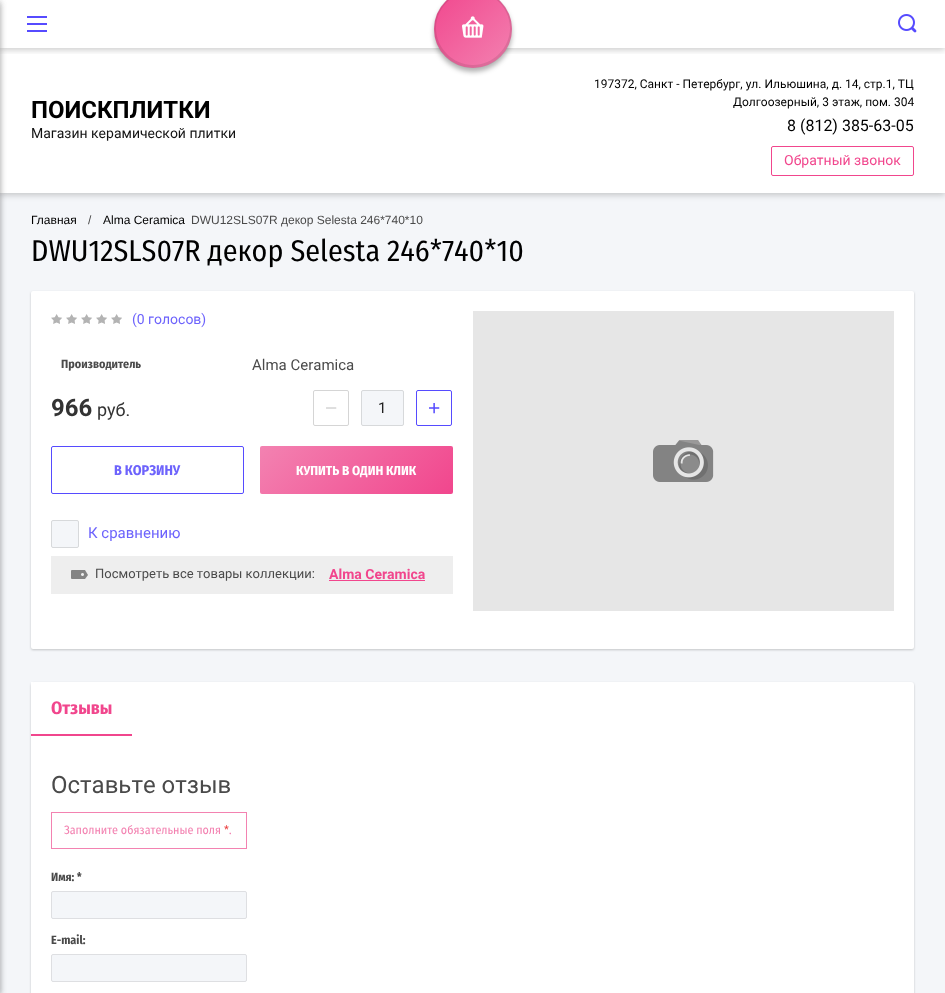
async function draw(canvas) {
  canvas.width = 945
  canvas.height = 993
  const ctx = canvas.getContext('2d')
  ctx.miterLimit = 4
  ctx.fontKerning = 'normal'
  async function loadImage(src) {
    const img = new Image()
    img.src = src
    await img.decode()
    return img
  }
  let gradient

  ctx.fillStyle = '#f4f6f9'
  ctx.fillRect(0, 0, 945, 993)
  ctx.fillStyle = '#00000033'
  ctx.filter = 'blur(3px)'
  ctx.beginPath()
  ctx.rect(0, 2, 945, 193)
  ctx.fill()
  ctx.filter = 'none'
  ctx.fillStyle = '#fff'
  ctx.fillRect(0, 0, 945, 193)
  ctx.fillStyle = '#00000033'
  ctx.filter = 'blur(3px)'
  ctx.beginPath()
  ctx.rect(-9, 2, 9, 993)
  ctx.fill()
  ctx.filter = 'none'
  ctx.filter = 'blur(3px)'
  ctx.beginPath()
  ctx.rect(-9, 2, 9, 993)
  ctx.fill()
  ctx.filter = 'none'
  ctx.save()
  ctx.beginPath()
  ctx.rect(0, 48, 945, 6)
  ctx.clip()
  ctx.filter = 'blur(3px)'
  ctx.beginPath()
  ctx.rect(0, 2, 945, 48)
  ctx.fill()
  ctx.filter = 'none'
  ctx.restore()
  ctx.fillStyle = '#0000004d'
  ctx.filter = 'blur(2.5px)'
  ctx.beginPath()
  ctx.roundRect(434, -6, 78, 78, 39)
  ctx.fill()
  ctx.filter = 'none'
  gradient = ctx.createLinearGradient(512, 68, 434, -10)
  gradient.addColorStop(0, '#f382b1')
  gradient.addColorStop(1, '#f1468d')
  ctx.fillStyle = gradient
  ctx.beginPath()
  ctx.arc(473, 29, 39, 0, 2 * Math.PI)
  ctx.fill()
  ctx.fillStyle = '#00000017'
  ctx.beginPath()
  ctx.moveTo(473, -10)
  ctx.bezierCurveTo(451, -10, 434, 7, 434, 29)
  ctx.bezierCurveTo(434, 51, 451, 68, 473, 68)
  ctx.bezierCurveTo(495, 68, 512, 51, 512, 29)
  ctx.bezierCurveTo(512, 7, 495, -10, 473, -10)
  ctx.closePath()
  ctx.moveTo(473, -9)
  ctx.bezierCurveTo(453, -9, 436, 8, 436, 28)
  ctx.bezierCurveTo(436, 48, 453, 65, 473, 65)
  ctx.bezierCurveTo(493, 65, 510, 48, 510, 28)
  ctx.bezierCurveTo(510, 8, 493, -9, 473, -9)
  ctx.closePath()
  ctx.fill('evenodd')
  ctx.drawImage(await loadImage('image0.png'), 462, 16, 22, 22)
  ctx.fillStyle = '#564bff'
  ctx.fillRect(27, 16, 20, 2)
  ctx.fillRect(27, 30, 20, 2)
  ctx.fillRect(27, 23, 20, 2)
  ctx.drawImage(await loadImage('image1.png'), 898, 14, 19, 19)
  ctx.font = 'bold 24px Roboto'
  ctx.fillStyle = '#000'
  ctx.fillText('ПОИСКПЛИТКИ', 31, 118)
  ctx.font = '14px Roboto'
  ctx.fillStyle = '#121212'
  ctx.fillText('Магазин керамической плитки', 31, 138)
  ctx.font = '12px Roboto'
  ctx.fillStyle = '#000'
  ctx.fillText('197372, Санкт - Петербург, ул. Ильюшина, д. 14, стр.1, ТЦ', 594, 88)
  ctx.fillText('Долгоозерный, 3 этаж, пом. 304', 733, 106)
  ctx.font = '16px Roboto'
  ctx.fillText('8 (812) 385-63-05', 787, 131)
  ctx.beginPath()
  ctx.roundRect(771.5, 146.5, 142, 29, 1.5)
  ctx.strokeStyle = '#f1468d'
  ctx.stroke()
  ctx.font = '14px Roboto'
  ctx.fillStyle = '#f1468d'
  ctx.fillText('Обратный звонок', 784, 165)
  ctx.font = '12px Liberation Sans'
  ctx.fillStyle = '#000'
  ctx.fillText('Главная', 31, 224)
  ctx.fillStyle = '#4a4a4a'
  ctx.fillText('/', 88, 224)
  ctx.fillStyle = '#000'
  ctx.fillText('Alma Ceramica', 103, 224)
  ctx.fillStyle = '#4a4a4a'
  ctx.fillText('DWU12SLS07R декор Selesta 246*740*10', 191, 224)
  ctx.font = '30px Fira Sans Condensed'
  ctx.fillStyle = '#000'
  ctx.fillText('DWU12SLS07R декор Selesta 246*740*10', 31, 261)
  ctx.fillStyle = '#00000033'
  ctx.filter = 'blur(1px)'
  ctx.beginPath()
  ctx.roundRect(31, 292, 883, 358, 2)
  ctx.fill()
  ctx.filter = 'none'
  ctx.fillStyle = '#fff'
  ctx.beginPath()
  ctx.roundRect(31, 291, 883, 358, 2)
  ctx.fill()
  ctx.drawImage(await loadImage('image2.png'), 51, 314, 71, 10)
  ctx.font = '14px Roboto'
  ctx.fillStyle = '#6d63fc'
  ctx.fillText('(0 голосов)', 132, 324)
  ctx.font = 'bold 12px Fira Sans Condensed'
  ctx.fillStyle = '#4a4a4a'
  ctx.fillText('Производитель', 61, 368)
  ctx.font = '15px Roboto'
  ctx.fillText('Alma Ceramica', 252, 370)
  ctx.font = 'bold 24px Roboto'
  ctx.fillStyle = '#333'
  ctx.fillText('966', 51, 416)
  ctx.font = '18px Roboto'
  ctx.fillText('руб.', 97, 416)
  ctx.beginPath()
  ctx.roundRect(313.5, 390.5, 35, 35, 1.5)
  ctx.strokeStyle = '#d5d5d5'
  ctx.stroke()
  ctx.font = '21px Liberation Sans'
  ctx.fillStyle = '#d5d5d5'
  ctx.fillText('−', 325, 415)
  ctx.fillStyle = '#f4f6f9'
  ctx.beginPath()
  ctx.roundRect(361.5, 390.5, 42, 35, 1.5)
  ctx.fill()
  ctx.strokeStyle = '#d7d9db'
  ctx.stroke()
  ctx.font = '15px Roboto'
  ctx.fillStyle = '#212121'
  ctx.fillText('1', 378, 413)
  ctx.beginPath()
  ctx.roundRect(416.5, 390.5, 35, 35, 1.5)
  ctx.strokeStyle = '#564bff'
  ctx.stroke()
  ctx.font = '21px Liberation Sans'
  ctx.fillStyle = '#564bff'
  ctx.fillText('+', 428, 415)
  ctx.beginPath()
  ctx.roundRect(51.5, 446.5, 192, 47, 1.5)
  ctx.stroke()
  ctx.font = 'bold 14px Fira Sans Condensed'
  ctx.fillStyle = '#6d63fc'
  ctx.fillText('В КОРЗИНУ', 114, 475)
  gradient = ctx.createLinearGradient(296, 410, 417, 530)
  gradient.addColorStop(0, '#f382b1')
  gradient.addColorStop(1, '#f1468d')
  ctx.fillStyle = gradient
  ctx.beginPath()
  ctx.roundRect(260, 446, 193, 48, 2)
  ctx.fill()
  ctx.font = 'bold 13px Fira Sans Condensed'
  ctx.fillStyle = '#fff'
  ctx.fillText('КУПИТЬ В ОДИН КЛИК', 296, 475)
  ctx.fillStyle = '#f4f6f9'
  ctx.beginPath()
  ctx.roundRect(51.5, 520.5, 27, 27, 1.5)
  ctx.fill()
  ctx.strokeStyle = '#d7d9db'
  ctx.stroke()
  ctx.font = '15px Roboto'
  ctx.fillStyle = '#6d63fc'
  ctx.fillText('К сравнению', 88, 538)
  ctx.fillStyle = '#eee'
  ctx.fillRect(51, 556, 402, 38)
  ctx.drawImage(await loadImage('image3.png'), 71, 570, 17, 9)
  ctx.font = '13px Roboto'
  ctx.fillStyle = '#4a4a4a'
  ctx.fillText('Посмотреть все товары коллекции:', 95, 578)
  ctx.font = 'bold 14px Roboto'
  ctx.fillStyle = '#f1468d'
  ctx.fillText('Alma Ceramica', 329, 579)
  ctx.fillRect(329, 580, 96, 1)
  ctx.fillStyle = '#e6e6e6'
  ctx.fillRect(473, 311, 421, 300)
  ctx.drawImage(await loadImage('image4.png'), 653, 440, 61, 42)
  ctx.fillStyle = '#00000033'
  ctx.filter = 'blur(1px)'
  ctx.beginPath()
  ctx.roundRect(31, 683, 883, 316, 3)
  ctx.fill()
  ctx.filter = 'none'
  ctx.fillStyle = '#fff'
  ctx.beginPath()
  ctx.roundRect(31, 682, 883, 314, 3)
  ctx.fill()
  ctx.fillRect(31, 682, 2, 3)
  ctx.fillStyle = '#f1468d'
  ctx.fillRect(31, 734, 101, 2)
  ctx.font = 'bold 18px Fira Sans Condensed'
  ctx.fillText('Отзывы', 51, 714)
  ctx.font = '24px Roboto'
  ctx.fillStyle = '#4a4a4a'
  ctx.fillText('Оставьте отзыв', 51, 793)
  ctx.strokeStyle = '#f382b1'
  ctx.strokeRect(51.5, 812.5, 195, 36)
  ctx.font = '12px Fira Sans Condensed'
  ctx.fillStyle = '#f382b1'
  ctx.fillText('Заполните обязательные поля', 64, 834)
  ctx.fillStyle = '#eb3c3c'
  ctx.fillText('*', 224, 834)
  ctx.fillStyle = '#f382b1'
  ctx.fillText('.', 229, 834)
  ctx.font = 'bold 12px Fira Sans Condensed'
  ctx.fillStyle = '#4a4a4a'
  ctx.fillText('Имя: *', 51, 881)
  ctx.fillStyle = '#f4f6f9'
  ctx.beginPath()
  ctx.roundRect(51.5, 891.5, 195, 27, 1.5)
  ctx.fill()
  ctx.strokeStyle = '#dedfe2'
  ctx.stroke()
  ctx.fillStyle = '#4a4a4a'
  ctx.fillText('E-mail:', 51, 944)
  ctx.fillStyle = '#f4f6f9'
  ctx.beginPath()
  ctx.roundRect(51.5, 954.5, 195, 27, 1.5)
  ctx.fill()
  ctx.stroke()
}

draw(document.querySelector('canvas'))
